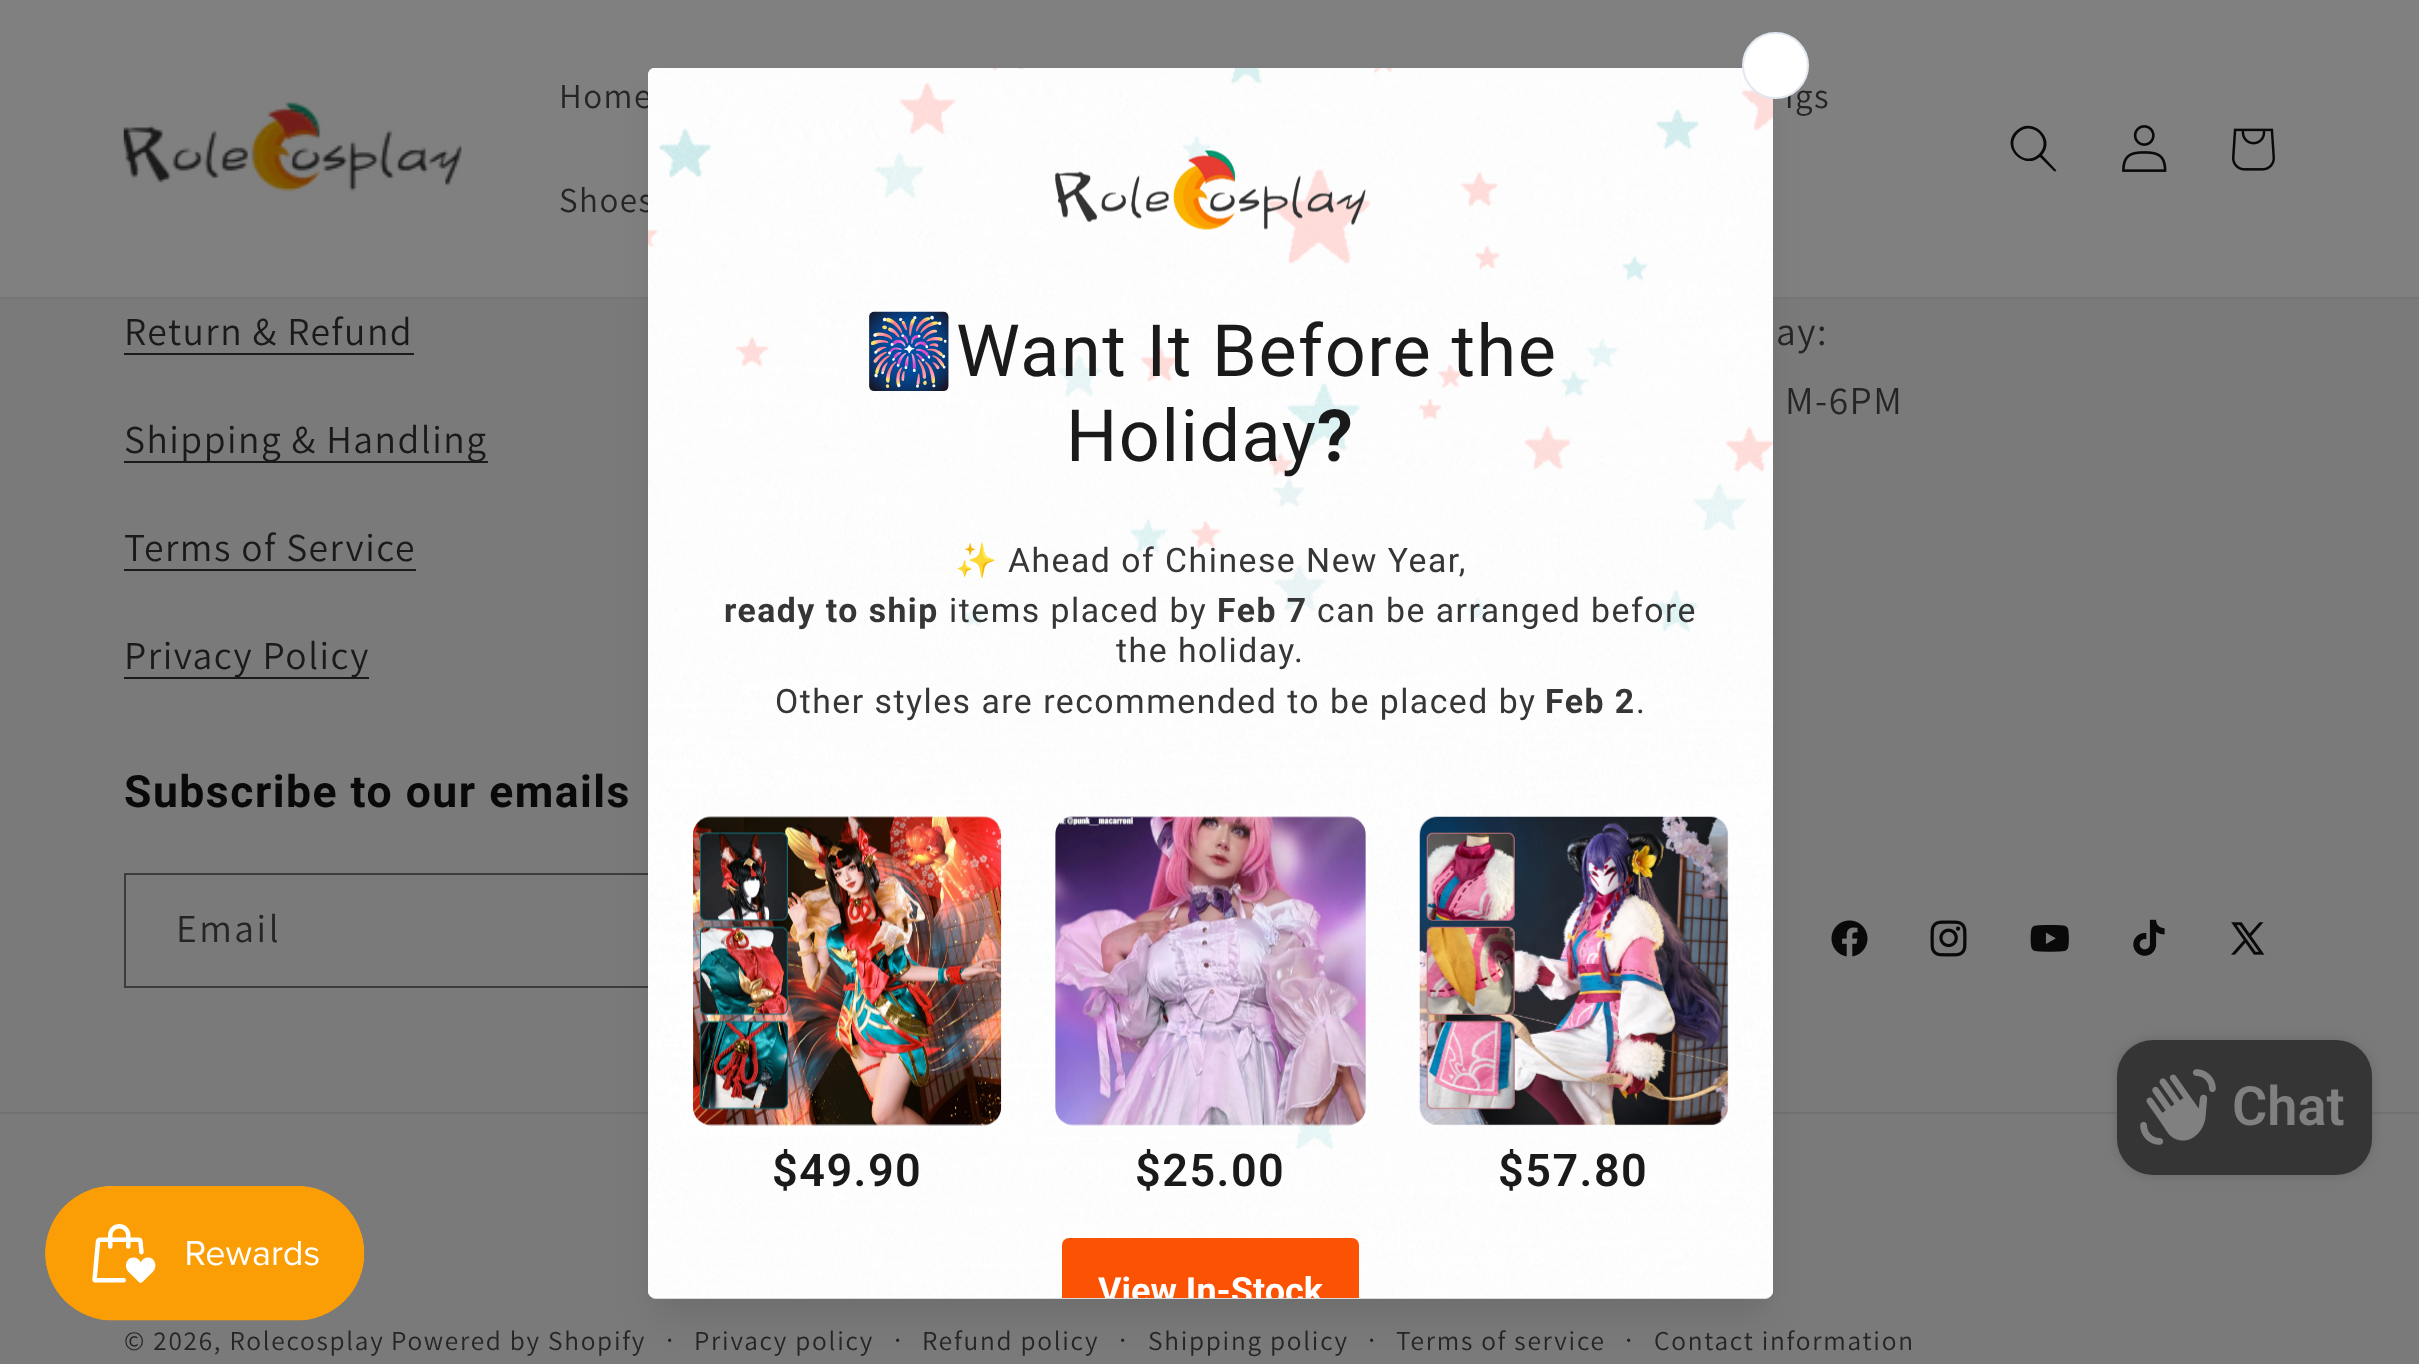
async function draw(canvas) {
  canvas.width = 2419
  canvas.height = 1364
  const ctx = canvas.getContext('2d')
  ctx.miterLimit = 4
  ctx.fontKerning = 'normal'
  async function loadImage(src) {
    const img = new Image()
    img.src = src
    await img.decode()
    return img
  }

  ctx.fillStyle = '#7a7a7a'
  ctx.fillRect(0, 0, 2419, 1364)
  ctx.fillStyle = '#808080'
  ctx.fillRect(0, 0, 2419, 297)
  ctx.fillStyle = '#767676'
  ctx.fillRect(0, 297, 2419, 2)
  ctx.drawImage(await loadImage('image0.png'), 123, 102, 339, 90)
  ctx.letterSpacing = '1.5px'
  ctx.font = '35px Assistant'
  ctx.fillStyle = '#252525'
  ctx.fillText('Home', 559, 108)
  ctx.fillText('igs', 1785, 108)
  ctx.fillText('Shoes', 559, 212)
  ctx.fillStyle = '#090909'
  ctx.beginPath()
  ctx.moveTo(2039, 154)
  ctx.bezierCurveTo(2025, 168, 2004, 147, 2018, 133)
  ctx.bezierCurveTo(2032, 119, 2053, 140, 2039, 154)
  ctx.moveTo(2040, 157)
  ctx.bezierCurveTo(2023, 171, 2000, 146, 2016, 131)
  ctx.bezierCurveTo(2032, 115, 2057, 139, 2042, 155)
  ctx.lineTo(2056, 170)
  ctx.bezierCurveTo(2057, 171, 2055, 172, 2054, 171)
  ctx.closePath()
  ctx.fill('evenodd')
  ctx.drawImage(await loadImage('image1.png'), 2122, 125, 45, 47)
  ctx.drawImage(await loadImage('image2.png'), 2232, 128, 43, 43)
  ctx.strokeStyle = '#3c3c3c'
  ctx.lineWidth = 2
  ctx.strokeRect(125, 874, 889, 113)
  ctx.fillStyle = '#717171'
  ctx.fillRect(0, 1112, 2419, 2)
  ctx.fillStyle = '#0000001a'
  ctx.filter = 'blur(17px)'
  ctx.beginPath()
  ctx.roundRect(655, 97, 1111, 1217, 1)
  ctx.fill()
  ctx.filter = 'none'
  ctx.drawImage(await loadImage('image8.png'), 1831, 920, 37, 37)
  ctx.save()
  ctx.beginPath()
  ctx.rect(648, 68, 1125, 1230)
  ctx.clip()
  ctx.fillStyle = '#0000001f'
  ctx.filter = 'blur(22.5px)'
  ctx.beginPath()
  ctx.roundRect(655, 74, 1111, 1218, 1)
  ctx.fill()
  ctx.filter = 'none'
  ctx.restore()
  ctx.fillStyle = '#fff'
  ctx.beginPath()
  ctx.roundRect(648, 68, 1125, 1230, 7)
  ctx.fill()
  ctx.drawImage(await loadImage('image3.png'), 648, 68, 1125, 1231)
  ctx.beginPath()
  ctx.arc(1775.5, 65.5, 32.5, 0, 2 * Math.PI)
  ctx.fill()
  ctx.strokeStyle = '#e2e8f0'
  ctx.stroke()
  ctx.drawImage(await loadImage('image4.png'), 1055, 150, 311, 80)
  ctx.font = '72px Noto Color Emoji'
  ctx.fillStyle = '#1a1a1a'
  ctx.fillText('🎆', 864, 376)
  ctx.font = '72px Roboto'
  ctx.fillText('Want It Before the', 956, 376)
  ctx.fillText('Holiday', 1066, 461)
  ctx.font = 'bold 72px Roboto'
  ctx.fillText('?', 1317, 461)
  ctx.font = '33.75px Noto Color Emoji'
  ctx.fillStyle = '#363636'
  ctx.fillText('✨', 955, 572)
  ctx.font = '33.75px Roboto'
  ctx.fillText('Ahead of Chinese New Year,', 1008, 572)
  ctx.font = 'bold 33.75px Roboto'
  ctx.fillText('ready to ship', 724, 622)
  ctx.font = '33.75px Roboto'
  ctx.fillText('items placed by', 949, 622)
  ctx.font = 'bold 33.75px Roboto'
  ctx.fillText('Feb 7', 1217, 622)
  ctx.font = '33.75px Roboto'
  ctx.fillText('can be arranged before', 1317, 622)
  ctx.fillText('the holiday.', 1116, 662)
  ctx.fillText('Other styles are recommended to be placed by', 775, 713)
  ctx.font = 'bold 33.75px Roboto'
  ctx.fillText('Feb 2', 1545, 713)
  ctx.font = '33.75px Roboto'
  ctx.fillText('.', 1636, 713)
  ctx.fillStyle = '#e2e8f0'
  ctx.beginPath()
  ctx.roundRect(693, 817, 308, 308, 18)
  ctx.fill()
  ctx.drawImage(await loadImage('image5.png'), 693, 816, 309, 310)
  ctx.font = '600 45px Roboto'
  ctx.fillStyle = '#1a1a1a'
  ctx.fillText('$49.90', 772, 1186)
  ctx.fillStyle = '#e2e8f0'
  ctx.beginPath()
  ctx.roundRect(1055, 817, 311, 308, 18)
  ctx.fill()
  ctx.drawImage(await loadImage('image6.png'), 1055, 816, 311, 310)
  ctx.fillStyle = '#1a1a1a'
  ctx.fillText('$25.00', 1135, 1186)
  ctx.drawImage(await loadImage('image7.png'), 1419, 816, 310, 310)
  ctx.fillText('$57.80', 1498, 1186)
  ctx.fillStyle = '#fc5203'
  ctx.beginPath()
  ctx.roundRect(1062, 1238, 297, 60, [7, 7, 0, 0])
  ctx.fill()
  ctx.save()
  ctx.beginPath()
  ctx.roundRect(648, 68, 1125, 1230, 7)
  ctx.clip()
  ctx.letterSpacing = '0px'
  ctx.font = 'bold 36px Roboto'
  ctx.fillStyle = '#fff'
  ctx.fillText('View In-Stock', 1098, 1303)
  ctx.restore()
  ctx.font = '39.5px Assistant'
  ctx.fillStyle = '#1a1a1a'
  ctx.fillText('Return & Refund', 124, 345)
  ctx.fillRect(124, 353, 290, 2)
  ctx.fillRect(124, 461, 364, 2)
  ctx.fillText('Shipping & Handling', 124, 453)
  ctx.fillText('Terms of Service', 124, 561)
  ctx.fillRect(124, 569, 292, 2)
  ctx.fillRect(124, 677, 245, 2)
  ctx.fillText('Privacy Policy', 124, 669)
  ctx.fillStyle = '#252525'
  ctx.fillText('ay:', 1776, 345)
  ctx.fillText('M-6PM', 1785, 414)
  ctx.font = 'bold 44.5px Roboto'
  ctx.fillStyle = '#090909'
  ctx.fillText('Subscribe to our emails', 124, 807)
  ctx.letterSpacing = '2.5px'
  ctx.font = '39.5px Assistant'
  ctx.fillStyle = '#252525'
  ctx.fillText('Email', 176, 942)
  ctx.drawImage(await loadImage('image9.png'), 1930, 920, 37, 37)
  ctx.drawImage(await loadImage('image10.png'), 2030, 924, 39, 28)
  ctx.drawImage(await loadImage('image11.png'), 2133, 919, 32, 37)
  ctx.drawImage(await loadImage('image12.png'), 2231, 922, 34, 33)
  ctx.letterSpacing = '1.75px'
  ctx.font = '27.25px Assistant'
  ctx.fillText('© 2026, Rolecosplay', 124, 1350)
  ctx.fillText('Powered by Shopify', 391, 1350)
  ctx.font = '30px Assistant'
  ctx.fillText('·', 666, 1350)
  ctx.font = '27.25px Assistant'
  ctx.fillText('Privacy policy', 694, 1350)
  ctx.font = '30px Assistant'
  ctx.fillText('·', 894, 1350)
  ctx.font = '27.25px Assistant'
  ctx.fillText('Refund policy', 922, 1350)
  ctx.font = '30px Assistant'
  ctx.fillText('·', 1119, 1350)
  ctx.font = '27.25px Assistant'
  ctx.fillText('Shipping policy', 1148, 1350)
  ctx.font = '30px Assistant'
  ctx.fillText('·', 1368, 1350)
  ctx.font = '27.25px Assistant'
  ctx.fillText('Terms of service', 1396, 1350)
  ctx.font = '30px Assistant'
  ctx.fillText('·', 1625, 1350)
  ctx.font = '27.25px Assistant'
  ctx.fillText('Contact information', 1654, 1350)
  ctx.fillStyle = '#00000026'
  ctx.filter = 'blur(5.5px)'
  ctx.beginPath()
  ctx.roundRect(2117, 1040, 255, 135, 36)
  ctx.fill()
  ctx.filter = 'none'
  ctx.fillStyle = '#353535'
  ctx.beginPath()
  ctx.roundRect(2117, 1040, 255, 135, 36)
  ctx.fill()
  ctx.drawImage(await loadImage('image13.png'), 2140, 1069, 76, 76)
  ctx.letterSpacing = '0px'
  ctx.font = '600 54px Roboto'
  ctx.fillStyle = '#808080'
  ctx.fillText('Chat', 2232, 1125)
  ctx.drawImage(await loadImage('image14.png'), 45, 1186, 320, 135)
}

draw(document.querySelector('canvas'))
